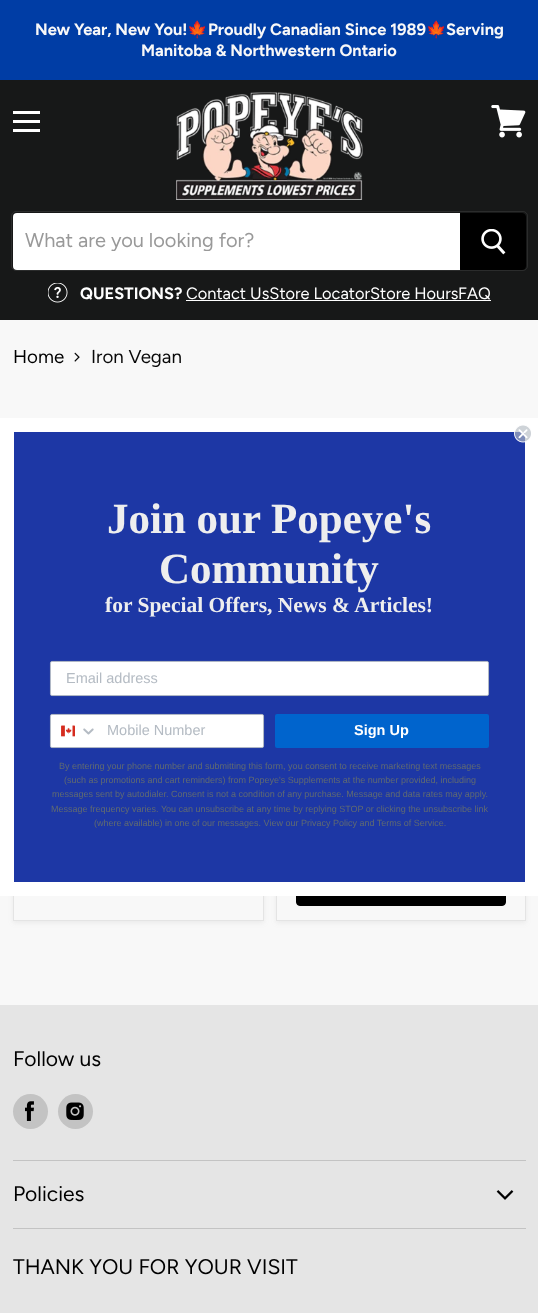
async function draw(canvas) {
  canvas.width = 538
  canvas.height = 1313
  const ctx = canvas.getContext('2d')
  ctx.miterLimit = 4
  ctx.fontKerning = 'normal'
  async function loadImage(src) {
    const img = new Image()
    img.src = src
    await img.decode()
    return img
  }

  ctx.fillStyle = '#f8f8f8'
  ctx.fillRect(0, 0, 538, 1313)
  ctx.fillStyle = '#003da5'
  ctx.fillRect(0, 0, 538, 80)
  ctx.font = 'bold 16.4px Figtree'
  ctx.fillStyle = '#f8f8f8'
  ctx.fillText('New Year, New You!', 35, 35)
  ctx.font = 'bold 16.4px Noto Color Emoji'
  ctx.fillText('🍁', 187, 35)
  ctx.font = 'bold 16.4px Figtree'
  ctx.fillText('Proudly Canadian Since 1989', 208, 35)
  ctx.font = 'bold 16.4px Noto Color Emoji'
  ctx.fillText('🍁', 426, 35)
  ctx.font = 'bold 16.4px Figtree'
  ctx.fillText('Serving', 446, 35)
  ctx.fillText('Manitoba & Northwestern Ontario', 141, 56)
  ctx.fillStyle = '#171818'
  ctx.fillRect(0, 80, 538, 240)
  ctx.fillStyle = '#fff'
  ctx.fillRect(13, 111, 27, 3)
  ctx.fillRect(13, 120, 27, 3)
  ctx.fillRect(13, 129, 27, 3)
  ctx.drawImage(await loadImage('image0.png'), 491, 105, 35, 33)
  ctx.drawImage(await loadImage('image1.png'), 176, 92, 187, 108)
  ctx.beginPath()
  ctx.roundRect(11.5, 211.5, 516, 59, 4.5)
  ctx.strokeStyle = '#7c7c7c33'
  ctx.stroke()
  ctx.beginPath()
  ctx.roundRect(13, 213, 447, 57, [4, 0, 0, 4])
  ctx.fill()
  ctx.save()
  ctx.beginPath()
  ctx.rect(25, 228, 423, 23)
  ctx.clip()
  ctx.font = '20px Figtree'
  ctx.fillStyle = '#999'
  ctx.fillText('What are you looking for?', 25, 247)
  ctx.restore()
  ctx.fillStyle = '#000'
  ctx.beginPath()
  ctx.roundRect(460.5, 213.5, 65, 56, [0, 3.5, 3.5, 0])
  ctx.fill()
  ctx.strokeStyle = '#000'
  ctx.stroke()
  ctx.drawImage(await loadImage('image2.png'), 481, 229, 25, 26)
  ctx.drawImage(await loadImage('image3.png'), 48, 283, 20, 20)
  ctx.fillStyle = '#fff'
  ctx.fillText('QUESTIONS?', 80, 299)
  ctx.font = '16.4px Figtree'
  ctx.fillText('Contact UsStore LocatorStore Hours', 186, 299)
  ctx.fillRect(186, 300, 305, 1)
  ctx.fillText('FAQ', 458, 299)
  ctx.font = '18.75px Figtree'
  ctx.fillStyle = '#000'
  ctx.fillText('Home', 13, 363)
  ctx.drawImage(await loadImage('image4.png'), 74, 352, 6, 10)
  ctx.fillStyle = '#080808'
  ctx.fillText('Iron Vegan', 91, 363)
  ctx.fillStyle = '#7c7c7c1c'
  ctx.filter = 'blur(2.5px)'
  ctx.beginPath()
  ctx.rect(13, 585, 251, 338)
  ctx.fill()
  ctx.filter = 'none'
  ctx.fillStyle = '#f8f8f8'
  ctx.fillRect(14, 896, 249, 24)
  ctx.strokeStyle = '#e4e4e4'
  ctx.strokeRect(13.5, 584.5, 250, 336)
  ctx.fillStyle = '#7c7c7c1c'
  ctx.filter = 'blur(2.5px)'
  ctx.beginPath()
  ctx.rect(276, 585, 250, 338)
  ctx.fill()
  ctx.filter = 'none'
  ctx.fillStyle = '#f8f8f8'
  ctx.fillRect(277, 896, 248, 24)
  ctx.strokeRect(276.5, 584.5, 249, 336)
  ctx.fillStyle = '#000'
  ctx.beginPath()
  ctx.roundRect(296.5, 860.5, 209, 45, 3.5)
  ctx.fill()
  ctx.strokeStyle = '#000'
  ctx.stroke()
  ctx.fillStyle = '#1d37a5'
  ctx.beginPath()
  ctx.rect(7, 425, 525, 464)
  ctx.fill()
  ctx.strokeStyle = '#fff'
  ctx.lineWidth = 14
  ctx.stroke()
  ctx.drawImage(await loadImage('image5.png'), 514, 425, 17, 18)
  ctx.font = 'bold 43px Liberation Serif'
  ctx.fillStyle = '#eee'
  ctx.fillText('Join our Popeye\'s', 107, 533)
  ctx.fillText('Community', 159, 583)
  ctx.font = 'bold 21.5px Liberation Serif'
  ctx.fillText('for Special Offers, News & Articles!', 105, 612)
  ctx.fillStyle = '#fff'
  ctx.beginPath()
  ctx.roundRect(50.45, 661.45, 438.1, 34.1, 1.55)
  ctx.fill()
  ctx.strokeStyle = '#b4bbc3'
  ctx.lineWidth = 0.9
  ctx.stroke()
  ctx.font = '14.5px Liberation Sans'
  ctx.fillStyle = '#b4bbc3'
  ctx.fillText('Email address', 66, 683)
  ctx.fillStyle = '#fff'
  ctx.beginPath()
  ctx.roundRect(50.45, 714.45, 213.1, 33.1, 1.55)
  ctx.fill()
  ctx.stroke()
  ctx.drawImage(await loadImage('image6.png'), 61, 725, 14, 12)
  ctx.drawImage(await loadImage('image7.png'), 83, 728, 11, 7)
  ctx.fillStyle = '#b4bbc3'
  ctx.fillText('Mobile Number', 107, 735)
  ctx.fillStyle = '#0064cd'
  ctx.beginPath()
  ctx.roundRect(275, 714, 214, 34, 2)
  ctx.fill()
  ctx.font = 'bold 14.5px Liberation Sans'
  ctx.fillStyle = '#fff'
  ctx.fillText('Sign Up', 354, 735)
  ctx.font = '9px Liberation Sans'
  ctx.fillStyle = '#606a72'
  ctx.fillText('By entering your phone number and submitting this form, you consent to receive marketing text messages', 59, 769)
  ctx.fillText('(such as promotions and cart reminders) from Popeye\'s Supplements at the number provided, including', 64, 783)
  ctx.fillText('messages sent by autodialer. Consent is not a condition of any purchase. Message and data rates may apply.', 52, 797)
  ctx.fillText('Message frequency varies. You can unsubscribe at any time by replying STOP or clicking the unsubscribe link', 51, 812)
  ctx.fillText('(where available) in one of our messages. View our Privacy Policy and Terms of Service.', 94, 826)
  ctx.fillStyle = '#e5e5e5'
  ctx.fillRect(0, 1005, 538, 308)
  ctx.fillStyle = '#c3c3c3'
  ctx.fillRect(13, 1160, 513, 1)
  ctx.font = '21.1px Figtree'
  ctx.fillStyle = '#000'
  ctx.fillText('Follow us', 13, 1066)
  ctx.fillStyle = '#c3c3c3'
  ctx.beginPath()
  ctx.arc(30.5, 1111.5, 17.5, 0, 2 * Math.PI)
  ctx.fill()
  ctx.drawImage(await loadImage('image8.png'), 25, 1101, 9, 20)
  ctx.beginPath()
  ctx.arc(75.5, 1111.5, 17.5, 0, 2 * Math.PI)
  ctx.fill()
  ctx.drawImage(await loadImage('image9.png'), 66, 1102, 18, 18)
  ctx.fillRect(13, 1228, 513, 1)
  ctx.fillStyle = '#000'
  ctx.fillText('Policies', 13, 1201)
  ctx.drawImage(await loadImage('image10.png'), 496, 1190, 18, 10)
  ctx.fillText('THANK YOU FOR YOUR VISIT', 13, 1274)
}

draw(document.querySelector('canvas'))
